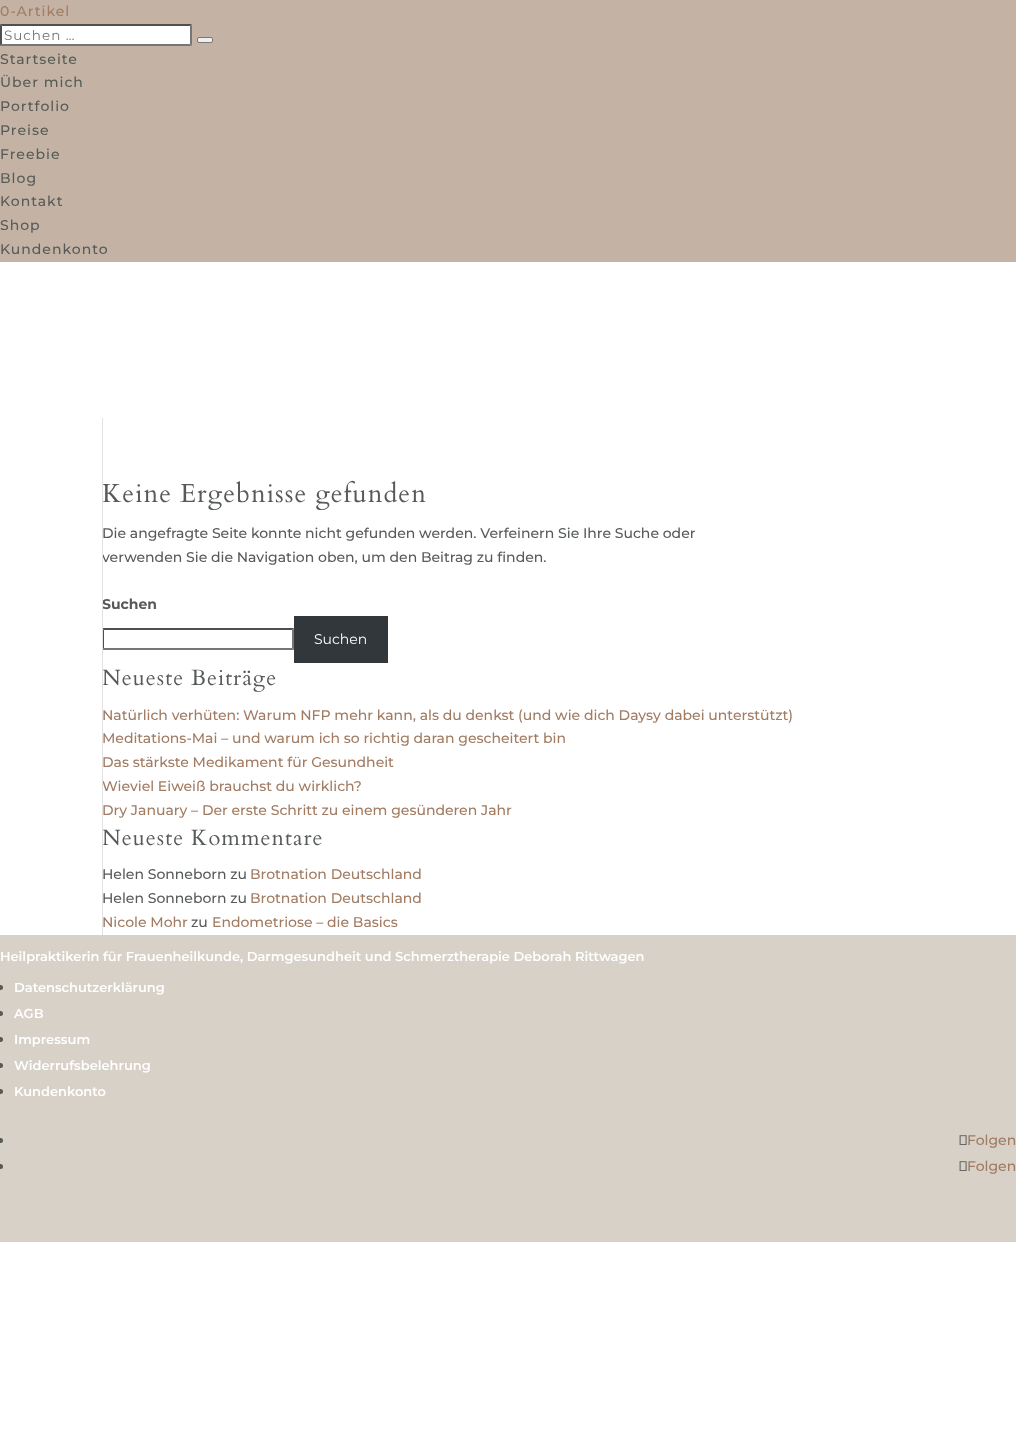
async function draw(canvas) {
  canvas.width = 1016
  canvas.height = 1446
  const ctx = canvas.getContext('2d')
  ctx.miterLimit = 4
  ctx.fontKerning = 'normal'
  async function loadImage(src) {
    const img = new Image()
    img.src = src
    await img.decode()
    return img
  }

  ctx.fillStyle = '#fff'
  ctx.fillRect(0, 0, 1016, 1446)
  ctx.fillStyle = '#c4b3a4'
  ctx.fillRect(0, 0, 1016, 262)
  ctx.letterSpacing = '1px'
  ctx.font = '500 14px Montserrat'
  ctx.fillStyle = '#a17b62'
  ctx.fillText('0-Artikel', 0, 16)
  ctx.fillStyle = '#fff'
  ctx.fillRect(0, 24, 192, 22)
  ctx.fillStyle = '#4f4f4f'
  ctx.beginPath()
  ctx.moveTo(0, 24)
  ctx.lineTo(192, 24)
  ctx.lineTo(190, 26)
  ctx.lineTo(2, 26)
  ctx.closePath()
  ctx.fill()
  ctx.fillStyle = '#767676'
  ctx.beginPath()
  ctx.moveTo(192, 24)
  ctx.lineTo(192, 46)
  ctx.lineTo(190, 44)
  ctx.lineTo(190, 26)
  ctx.closePath()
  ctx.fill()
  ctx.beginPath()
  ctx.moveTo(192, 46)
  ctx.lineTo(0, 46)
  ctx.lineTo(2, 44)
  ctx.lineTo(190, 44)
  ctx.closePath()
  ctx.fill()
  ctx.fillStyle = '#4f4f4f'
  ctx.beginPath()
  ctx.moveTo(0, 46)
  ctx.lineTo(0, 24)
  ctx.lineTo(2, 26)
  ctx.lineTo(2, 44)
  ctx.closePath()
  ctx.fill()
  ctx.font = '13.5px Montserrat'
  ctx.fillStyle = '#757575'
  ctx.fillText('Suchen …', 4, 40)
  ctx.fillStyle = '#efefef'
  ctx.beginPath()
  ctx.roundRect(197.5, 37.5, 15, 5, 1.5)
  ctx.fill()
  ctx.strokeStyle = '#767676'
  ctx.stroke()
  ctx.font = '500 14px Montserrat'
  ctx.fillStyle = '#575b58'
  ctx.fillText('Startseite', 0, 64)
  ctx.fillText('Über mich', 0, 87)
  ctx.fillText('Portfolio', 0, 111)
  ctx.fillText('Preise', 0, 135)
  ctx.fillText('Freebie', 0, 159)
  ctx.fillText('Blog', 0, 183)
  ctx.fillText('Kontakt', 0, 206)
  ctx.fillText('Shop', 0, 230)
  ctx.fillText('Kundenkonto', 0, 254)
  ctx.font = '26px Cardo'
  ctx.fillText('Keine Ergebnisse gefunden', 102, 502)
  ctx.letterSpacing = '0px'
  ctx.font = '500 14px Montserrat'
  ctx.fillText('verwenden Sie die Navigation oben, um den Beitrag zu finden.', 102, 562)
  ctx.font = 'bold 14px Montserrat'
  ctx.fillText('Suchen', 102, 609)
  ctx.fillStyle = '#4f4f4f'
  ctx.beginPath()
  ctx.moveTo(102, 628)
  ctx.lineTo(294, 628)
  ctx.lineTo(292, 630)
  ctx.lineTo(104, 630)
  ctx.closePath()
  ctx.fill()
  ctx.fillStyle = '#767676'
  ctx.beginPath()
  ctx.moveTo(294, 628)
  ctx.lineTo(294, 650)
  ctx.lineTo(292, 648)
  ctx.lineTo(292, 630)
  ctx.closePath()
  ctx.fill()
  ctx.beginPath()
  ctx.moveTo(294, 650)
  ctx.lineTo(102, 650)
  ctx.lineTo(104, 648)
  ctx.lineTo(292, 648)
  ctx.closePath()
  ctx.fill()
  ctx.fillStyle = '#4f4f4f'
  ctx.beginPath()
  ctx.moveTo(102, 650)
  ctx.lineTo(102, 628)
  ctx.lineTo(104, 630)
  ctx.lineTo(104, 648)
  ctx.closePath()
  ctx.fill()
  ctx.letterSpacing = '1px'
  ctx.font = '22px Cardo'
  ctx.fillStyle = '#575b58'
  ctx.fillText('Neueste Beiträge', 102, 685)
  ctx.letterSpacing = '0px'
  ctx.font = '500 14px Montserrat'
  ctx.fillStyle = '#a17b62'
  ctx.fillText('Wieviel Eiweiß brauchst du wirklich?', 102, 791)
  ctx.letterSpacing = '1px'
  ctx.font = '22px Cardo'
  ctx.fillStyle = '#575b58'
  ctx.fillText('Neueste Kommentare', 102, 845)
  ctx.fillStyle = '#e2e2e2'
  ctx.fillRect(102, 418, 1, 517)
  ctx.letterSpacing = '0px'
  ctx.font = '500 14px Montserrat'
  ctx.fillStyle = '#575b58'
  ctx.fillText('Die angefragte Seite konnte nicht gefunden werden. Verfeinern Sie Ihre Suche oder', 102, 538)
  ctx.fillStyle = '#32373c'
  ctx.fillRect(294, 616, 94, 47)
  ctx.font = '14px Montserrat'
  ctx.fillStyle = '#fff'
  ctx.fillText('Suchen', 314, 644)
  ctx.font = '500 14px Montserrat'
  ctx.fillStyle = '#a17b62'
  ctx.fillText('Natürlich verhüten: Warum NFP mehr kann, als du denkst (und wie dich Daysy dabei unterstützt)', 102, 720)
  ctx.fillText('Meditations-Mai – und warum ich so richtig daran gescheitert bin', 102, 743)
  ctx.fillText('Das stärkste Medikament für Gesundheit', 102, 767)
  ctx.fillText('Dry January – Der erste Schritt zu einem gesünderen Jahr', 102, 815)
  ctx.fillStyle = '#575b58'
  ctx.fillText('Helen Sonneborn zu', 102, 879)
  ctx.fillStyle = '#a17b62'
  ctx.fillText('Brotnation Deutschland', 250, 879)
  ctx.fillStyle = '#575b58'
  ctx.fillText('Helen Sonneborn zu', 102, 903)
  ctx.fillStyle = '#a17b62'
  ctx.fillText('Brotnation Deutschland', 250, 903)
  ctx.fillText('Nicole Mohr', 102, 927)
  ctx.fillStyle = '#575b58'
  ctx.fillText('zu', 191, 927)
  ctx.fillStyle = '#a17b62'
  ctx.fillText('Endometriose – die Basics', 212, 927)
  ctx.fillStyle = '#d7d1c8'
  ctx.fillRect(0, 935, 1016, 307)
  ctx.font = '600 13px Montserrat'
  ctx.fillStyle = '#fff'
  ctx.fillText('Heilpraktikerin für Frauenheilkunde, Darmgesundheit und Schmerztherapie Deborah Rittwagen', 0, 961)
  ctx.fillStyle = '#575b58'
  ctx.beginPath()
  ctx.arc(0.5, 987.5, 2.5, 0, 2 * Math.PI)
  ctx.fill()
  ctx.fillStyle = '#fff'
  ctx.fillText('Datenschutzerklärung', 14, 992)
  ctx.fillStyle = '#575b58'
  ctx.beginPath()
  ctx.arc(0.5, 1013.5, 2.5, 0, 2 * Math.PI)
  ctx.fill()
  ctx.fillStyle = '#fff'
  ctx.fillText('AGB', 14, 1018)
  ctx.fillStyle = '#575b58'
  ctx.beginPath()
  ctx.arc(0.5, 1039.5, 2.5, 0, 2 * Math.PI)
  ctx.fill()
  ctx.fillStyle = '#fff'
  ctx.fillText('Impressum', 14, 1044)
  ctx.fillStyle = '#575b58'
  ctx.beginPath()
  ctx.arc(0.5, 1065.5, 2.5, 0, 2 * Math.PI)
  ctx.fill()
  ctx.fillStyle = '#fff'
  ctx.fillText('Widerrufsbelehrung', 14, 1070)
  ctx.fillStyle = '#575b58'
  ctx.beginPath()
  ctx.arc(0.5, 1091.5, 2.5, 0, 2 * Math.PI)
  ctx.fill()
  ctx.fillStyle = '#fff'
  ctx.fillText('Kundenkonto', 14, 1096)
  ctx.fillStyle = '#575b58'
  ctx.beginPath()
  ctx.arc(0.5, 1140.5, 2.5, 0, 2 * Math.PI)
  ctx.fill()
  ctx.drawImage(await loadImage('image0.png'), 959, 1135, 8, 10)
  ctx.font = '500 14px Montserrat'
  ctx.fillStyle = '#a17b62'
  ctx.fillText('Folgen', 967, 1145)
  ctx.fillStyle = '#575b58'
  ctx.beginPath()
  ctx.arc(0.5, 1166.5, 2.5, 0, 2 * Math.PI)
  ctx.fill()
  ctx.drawImage(await loadImage('image0.png'), 959, 1161, 8, 10)
  ctx.fillStyle = '#a17b62'
  ctx.fillText('Folgen', 967, 1171)
}

draw(document.querySelector('canvas'))
